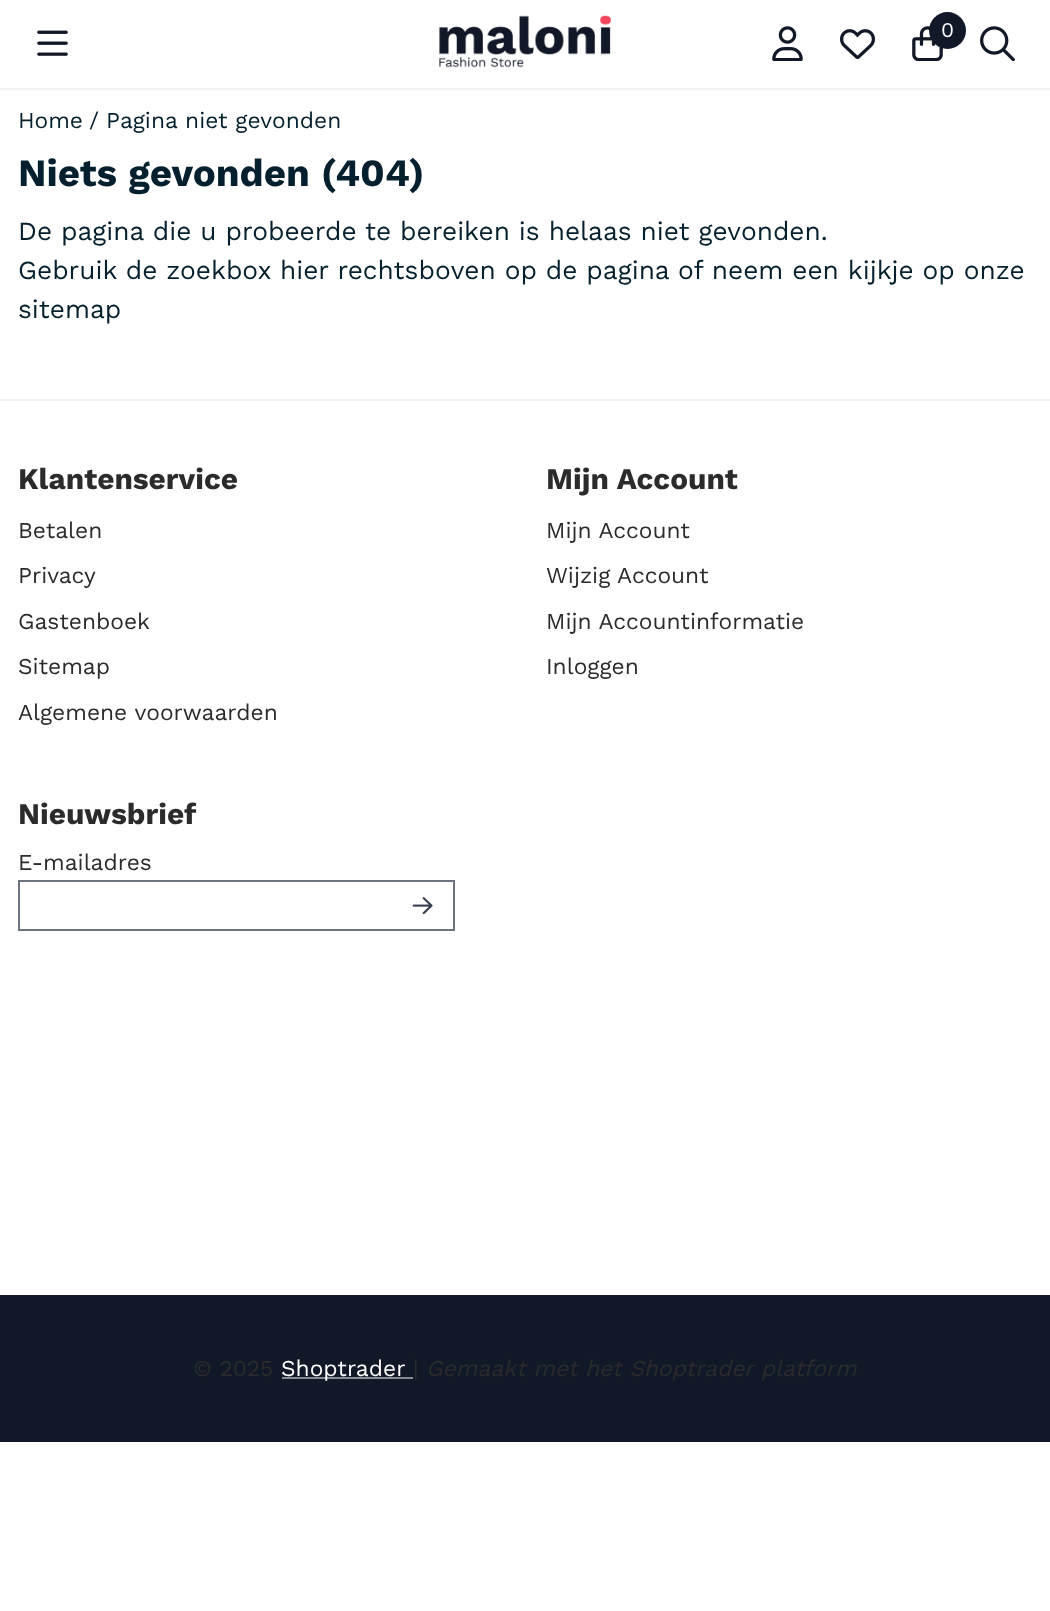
async function draw(canvas) {
  canvas.width = 1050
  canvas.height = 1611
  const ctx = canvas.getContext('2d')
  ctx.miterLimit = 4
  ctx.fontKerning = 'normal'
  async function loadImage(src) {
    const img = new Image()
    img.src = src
    await img.decode()
    return img
  }

  ctx.fillStyle = '#fff'
  ctx.fillRect(0, 0, 1050, 1611)
  ctx.fillStyle = '#0000000d'
  ctx.fillRect(0, 88, 1050, 2)
  ctx.drawImage(await loadImage('image0.png'), 37, 30, 31, 26)
  ctx.drawImage(await loadImage('image1.png'), 439, 15, 172, 53)
  ctx.drawImage(await loadImage('image2.png'), 772, 26, 31, 35)
  ctx.drawImage(await loadImage('image3.png'), 840, 29, 35, 30)
  ctx.drawImage(await loadImage('image4.png'), 912, 26, 31, 35)
  ctx.fillStyle = '#111827'
  ctx.beginPath()
  ctx.arc(947.5, 30.5, 18.5, 0, 2 * Math.PI)
  ctx.fill()
  ctx.font = '21px Work Sans'
  ctx.fillStyle = '#fff'
  ctx.fillText('0', 941, 37)
  ctx.drawImage(await loadImage('image5.png'), 980, 26, 35, 35)
  ctx.font = '22.75px Work Sans'
  ctx.fillStyle = '#04202e'
  ctx.fillText('Home', 18, 128)
  ctx.fillText('/', 89, 128)
  ctx.fillText('Pagina niet gevonden', 106, 128)
  ctx.font = 'bold 38.5px Work Sans'
  ctx.fillText('Niets gevonden (404)', 18, 186)
  ctx.font = '26.25px Work Sans'
  ctx.fillText('De pagina die u probeerde te bereiken is helaas niet gevonden.', 18, 240)
  ctx.fillText('Gebruik de zoekbox hier rechtsboven op de pagina of neem een kijkje op onze', 18, 279)
  ctx.fillText('sitemap', 18, 318)
  ctx.fillStyle = '#f2f2f2'
  ctx.fillRect(0, 399, 1050, 2)
  ctx.font = 'bold 29.75px Work Sans'
  ctx.fillStyle = '#2b2b2b'
  ctx.fillText('Klantenservice', 18, 489)
  ctx.font = '22.75px Work Sans'
  ctx.fillText('Betalen', 18, 538)
  ctx.fillText('Privacy', 18, 583)
  ctx.fillText('Gastenboek', 18, 629)
  ctx.fillText('Sitemap', 18, 674)
  ctx.fillText('Algemene voorwaarden', 18, 720)
  ctx.font = 'bold 29.75px Work Sans'
  ctx.fillText('Mijn Account', 546, 489)
  ctx.font = '22.75px Work Sans'
  ctx.fillText('Mijn Account', 546, 538)
  ctx.fillText('Wijzig Account', 546, 583)
  ctx.fillText('Mijn Accountinformatie', 546, 629)
  ctx.fillText('Inloggen', 546, 674)
  ctx.font = 'bold 29.75px Work Sans'
  ctx.fillText('Nieuwsbrief', 18, 824)
  ctx.font = '22.75px Work Sans'
  ctx.fillText('E-mailadres', 18, 870)
  ctx.fillStyle = '#6b7280'
  ctx.fillRect(18, 880, 437, 2)
  ctx.fillRect(18, 929, 381, 2)
  ctx.fillRect(18, 880, 2, 51)
  ctx.fillRect(453, 880, 2, 51)
  ctx.fillRect(392, 929, 63, 2)
  ctx.drawImage(await loadImage('image6.png'), 412, 897, 21, 18)
  ctx.fillStyle = '#111827'
  ctx.fillRect(0, 1295, 1050, 147)
  ctx.fillStyle = '#2b2b2b'
  ctx.fillText('© 2025', 193, 1376)
  ctx.fillStyle = '#888c93'
  ctx.fillRect(282, 1377, 131, 2)
  ctx.fillStyle = '#fff'
  ctx.fillText('Shoptrader', 281, 1376)
  ctx.fillStyle = '#2b2b2b'
  ctx.fillText('|', 413, 1376)
  ctx.font = 'italic 22.75px Work Sans'
  ctx.fillText('Gemaakt met het Shoptrader platform', 426, 1376)
}

draw(document.querySelector('canvas'))
